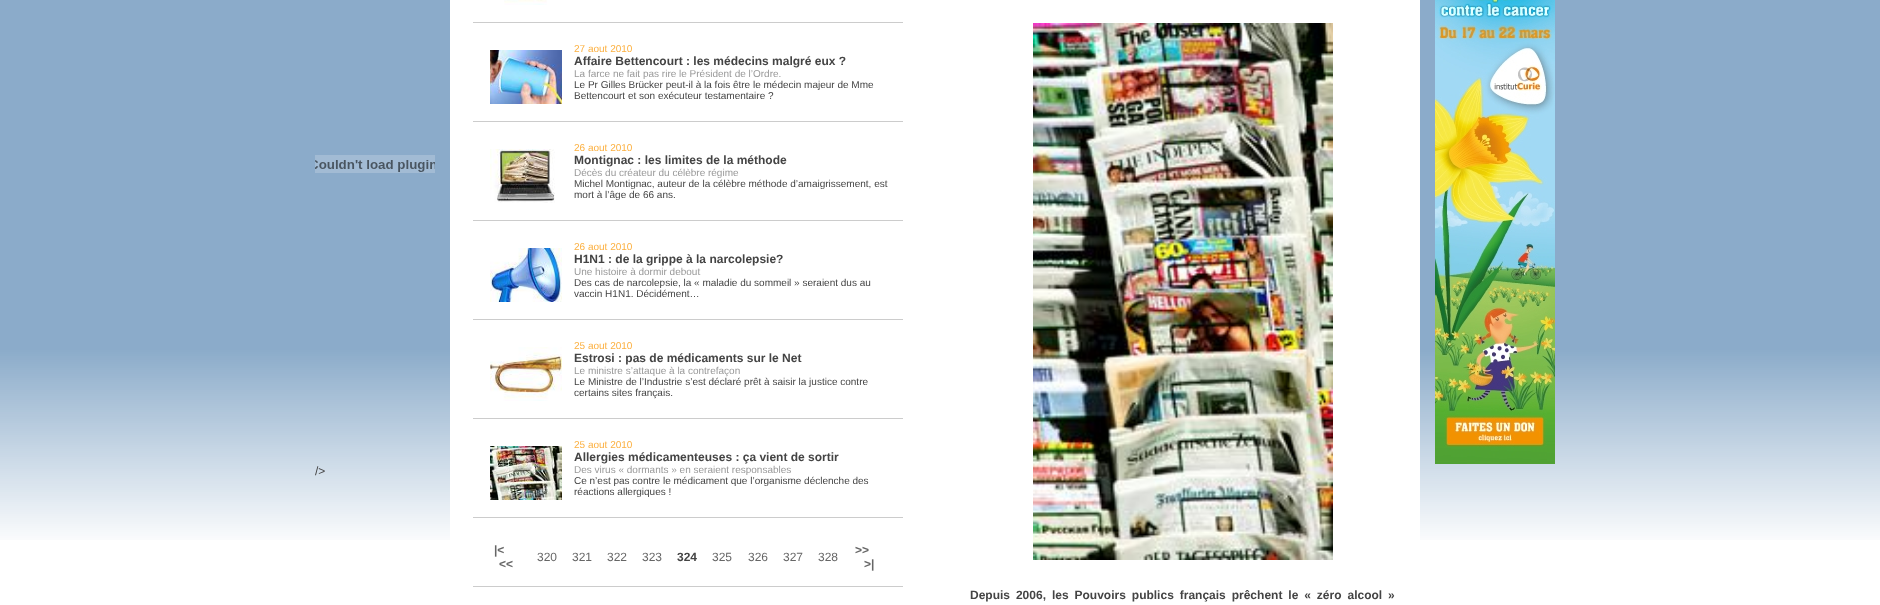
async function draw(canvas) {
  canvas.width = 1880
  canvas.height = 605
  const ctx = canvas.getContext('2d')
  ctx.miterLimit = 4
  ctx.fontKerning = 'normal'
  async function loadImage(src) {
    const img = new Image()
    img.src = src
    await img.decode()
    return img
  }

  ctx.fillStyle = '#fff'
  ctx.fillRect(0, 0, 1880, 605)
  ctx.drawImage(await loadImage('image0.png'), 0, 0, 1880, 540)
  ctx.fillRect(450, 0, 970, 540)
  ctx.drawImage(await loadImage('image1.png'), 315, 155, 120, 18)
  ctx.font = '12px Liberation Sans'
  ctx.fillStyle = '#444'
  ctx.fillText('/>', 315, 475)
  ctx.fillStyle = '#ccc'
  ctx.fillRect(473, 22, 430, 1)
  ctx.drawImage(await loadImage('image2.png'), 504, 0, 43, 5)
  ctx.fillRect(473, 121, 430, 1)
  ctx.drawImage(await loadImage('image3.png'), 490, 50, 72, 54)
  ctx.font = '10px Liberation Sans'
  ctx.fillStyle = '#fcb040'
  ctx.fillText('27 aout 2010', 574, 52)
  ctx.font = 'bold 12px Liberation Sans'
  ctx.fillStyle = '#444'
  ctx.fillText('Affaire Bettencourt : les médecins malgré eux ?', 574, 65)
  ctx.font = '10px Liberation Sans'
  ctx.fillStyle = '#999'
  ctx.fillText('La farce ne fait pas rire le Président de l’Ordre.', 574, 77)
  ctx.fillStyle = '#444'
  ctx.fillText('Le Pr Gilles Brücker peut-il à la fois être le médecin majeur de Mme', 574, 88)
  ctx.fillText('Bettencourt et son exécuteur testamentaire ?', 574, 99)
  ctx.fillStyle = '#ccc'
  ctx.fillRect(473, 220, 430, 1)
  ctx.drawImage(await loadImage('image4.png'), 490, 149, 65, 54)
  ctx.fillStyle = '#fcb040'
  ctx.fillText('26 aout 2010', 574, 151)
  ctx.font = 'bold 12px Liberation Sans'
  ctx.fillStyle = '#444'
  ctx.fillText('Montignac : les limites de la méthode', 574, 164)
  ctx.font = '10px Liberation Sans'
  ctx.fillStyle = '#999'
  ctx.fillText('Décès du créateur du célèbre régime', 574, 176)
  ctx.fillStyle = '#444'
  ctx.fillText('Michel Montignac, auteur de la célèbre méthode d’amaigrissement, est', 574, 187)
  ctx.fillText('mort à l’âge de 66 ans.', 574, 198)
  ctx.fillStyle = '#ccc'
  ctx.fillRect(473, 319, 430, 1)
  ctx.drawImage(await loadImage('image5.png'), 490, 248, 72, 54)
  ctx.fillStyle = '#fcb040'
  ctx.fillText('26 aout 2010', 574, 250)
  ctx.font = 'bold 12px Liberation Sans'
  ctx.fillStyle = '#444'
  ctx.fillText('H1N1 : de la grippe à la narcolepsie?', 574, 263)
  ctx.font = '10px Liberation Sans'
  ctx.fillStyle = '#999'
  ctx.fillText('Une histoire à dormir debout', 574, 275)
  ctx.fillStyle = '#444'
  ctx.fillText('Des cas de narcolepsie, la « maladie du sommeil » seraient dus au', 574, 286)
  ctx.fillText('vaccin H1N1. Décidément…', 574, 297)
  ctx.fillStyle = '#ccc'
  ctx.fillRect(473, 418, 430, 1)
  ctx.drawImage(await loadImage('image6.png'), 490, 347, 72, 54)
  ctx.fillStyle = '#fcb040'
  ctx.fillText('25 aout 2010', 574, 349)
  ctx.font = 'bold 12px Liberation Sans'
  ctx.fillStyle = '#444'
  ctx.fillText('Estrosi : pas de médicaments sur le Net', 574, 362)
  ctx.font = '10px Liberation Sans'
  ctx.fillStyle = '#999'
  ctx.fillText('Le ministre s’attaque à la contrefaçon', 574, 374)
  ctx.fillStyle = '#444'
  ctx.fillText('Le Ministre de l’Industrie s’est déclaré prêt à saisir la justice contre', 574, 385)
  ctx.fillText('certains sites français.', 574, 396)
  ctx.fillStyle = '#ccc'
  ctx.fillRect(473, 517, 430, 1)
  ctx.drawImage(await loadImage('image7.png'), 490, 446, 72, 54)
  ctx.fillStyle = '#fcb040'
  ctx.fillText('25 aout 2010', 574, 448)
  ctx.font = 'bold 12px Liberation Sans'
  ctx.fillStyle = '#444'
  ctx.fillText('Allergies médicamenteuses : ça vient de sortir', 574, 461)
  ctx.font = '10px Liberation Sans'
  ctx.fillStyle = '#999'
  ctx.fillText('Des virus « dormants » en seraient responsables', 574, 473)
  ctx.fillStyle = '#444'
  ctx.fillText('Ce n’est pas contre le médicament que l’organisme déclenche des', 574, 484)
  ctx.fillText('réactions allergiques !', 574, 495)
  ctx.fillStyle = '#ccc'
  ctx.fillRect(473, 586, 430, 1)
  ctx.font = 'bold 12px Liberation Sans'
  ctx.fillStyle = '#666'
  ctx.fillText('|<', 494, 554)
  ctx.fillText('<<', 499, 568)
  ctx.font = '12px Liberation Sans'
  ctx.fillText('320', 537, 561)
  ctx.fillText('321', 572, 561)
  ctx.fillText('322', 607, 561)
  ctx.fillText('323', 642, 561)
  ctx.font = 'bold 12px Liberation Sans'
  ctx.fillStyle = '#444'
  ctx.fillText('324', 677, 561)
  ctx.font = '12px Liberation Sans'
  ctx.fillStyle = '#666'
  ctx.fillText('325', 712, 561)
  ctx.fillText('326', 748, 561)
  ctx.fillText('327', 783, 561)
  ctx.fillText('328', 818, 561)
  ctx.font = 'bold 12px Liberation Sans'
  ctx.fillText('>>', 855, 554)
  ctx.fillText('>|', 864, 568)
  ctx.drawImage(await loadImage('image8.png'), 1435, 0, 120, 464)
  ctx.drawImage(await loadImage('image9.png'), 1033, 23, 300, 537)
  ctx.wordSpacing = '2.6px'
  ctx.fillStyle = '#444'
  ctx.fillText('Depuis 2006, les Pouvoirs publics français prêchent le « zéro alcool »', 970, 599)
}

draw(document.querySelector('canvas'))
